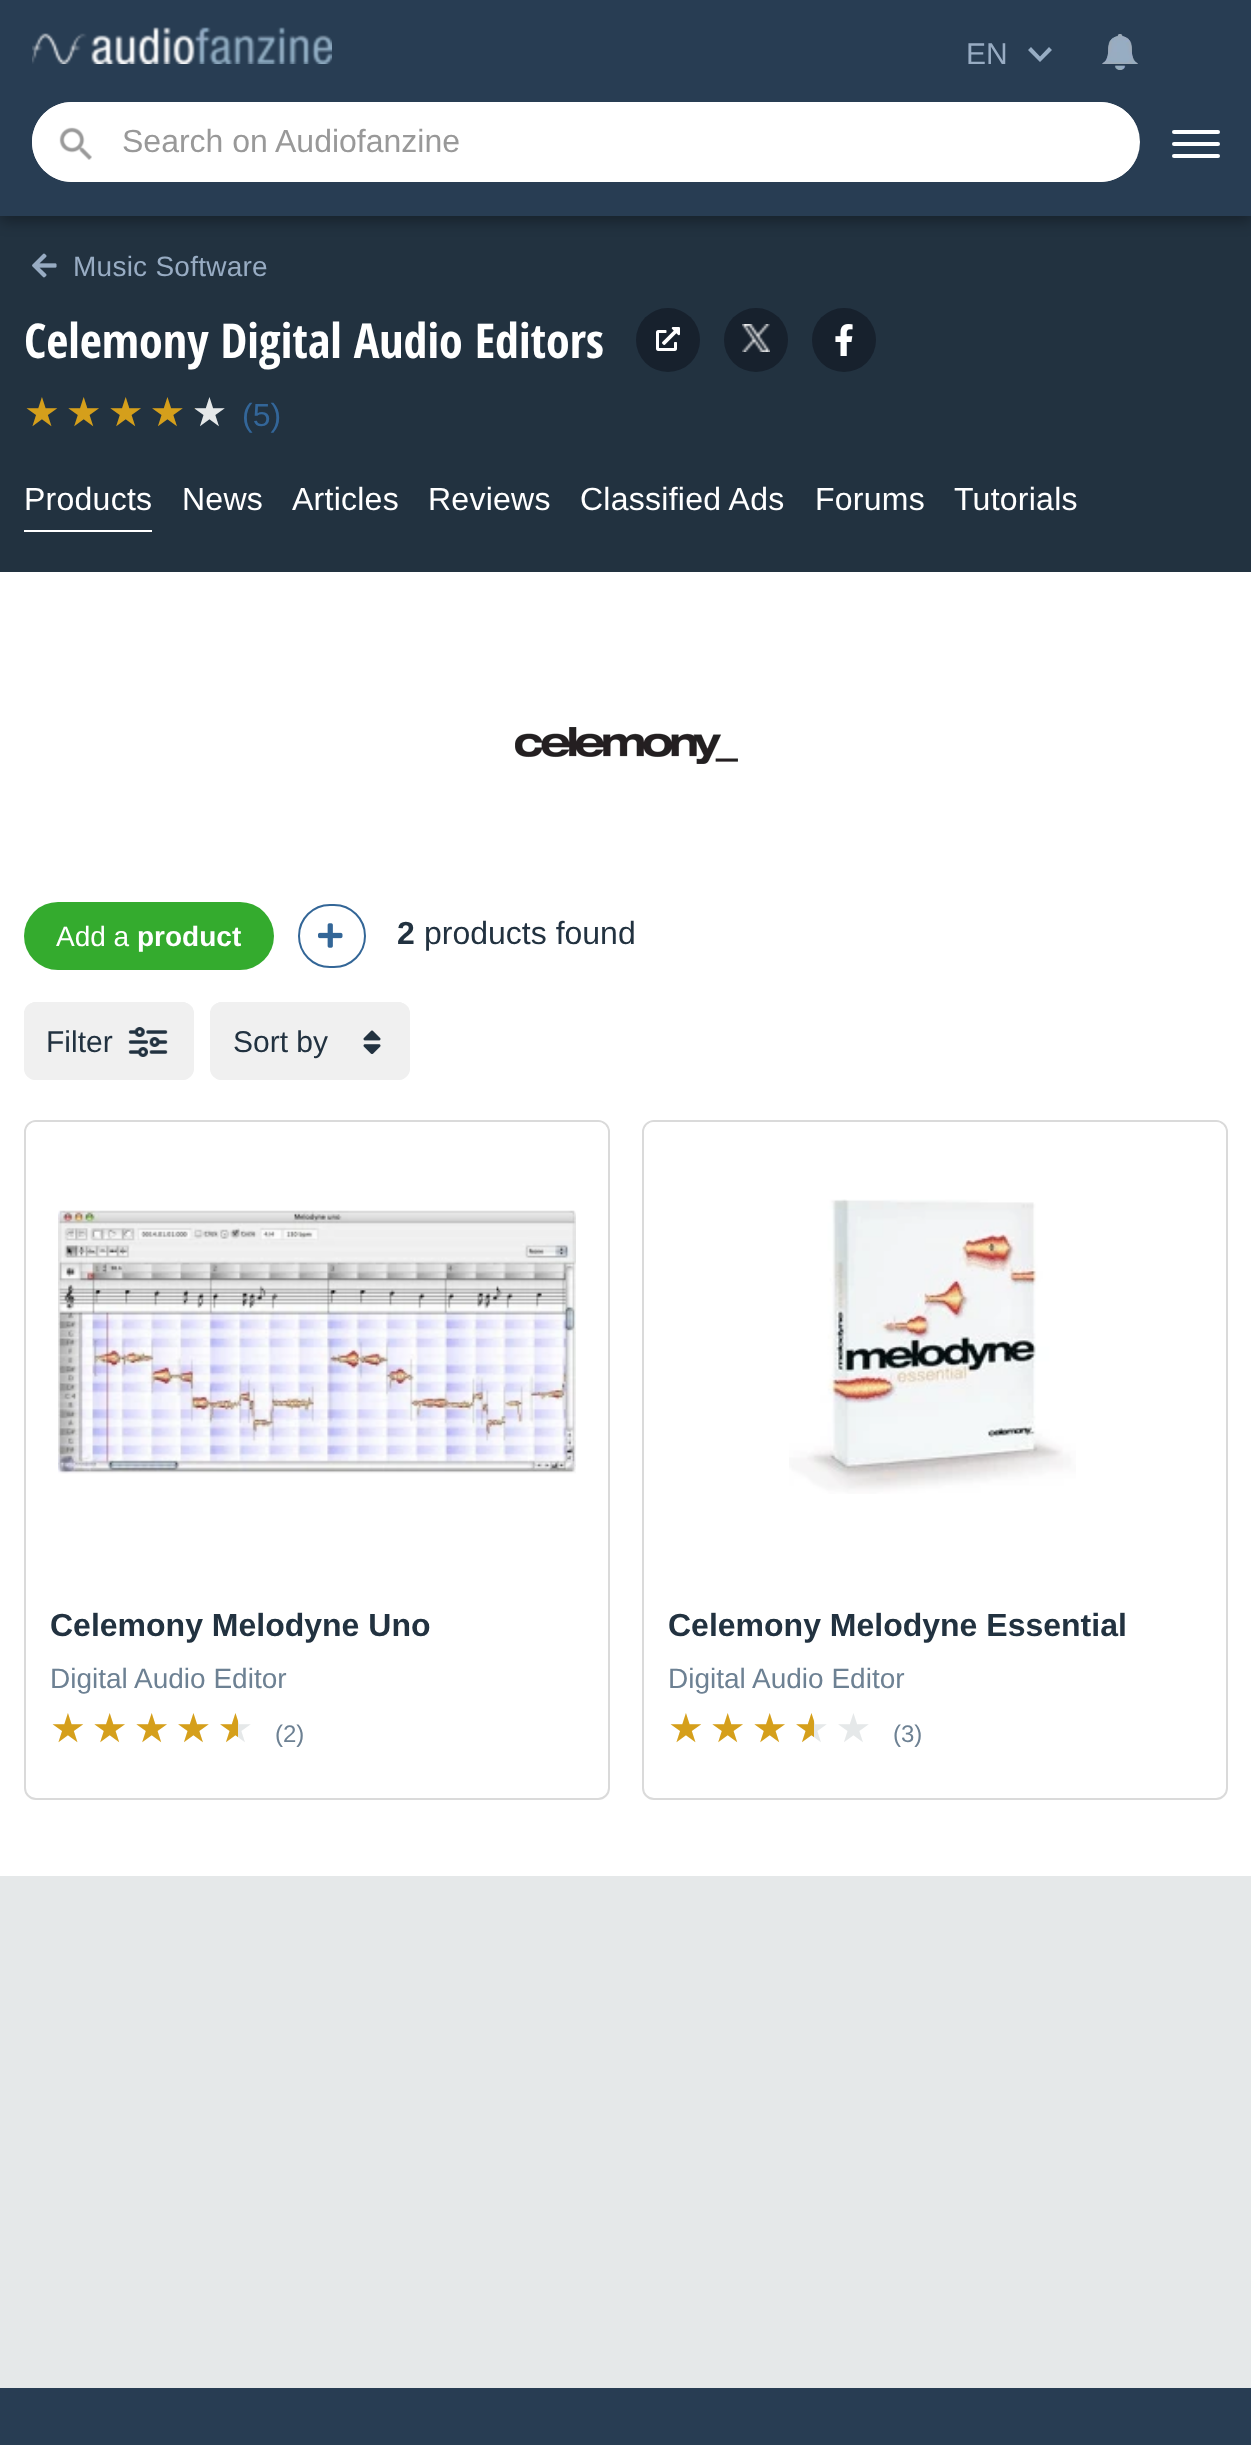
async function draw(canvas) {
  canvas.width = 1251
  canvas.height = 2445
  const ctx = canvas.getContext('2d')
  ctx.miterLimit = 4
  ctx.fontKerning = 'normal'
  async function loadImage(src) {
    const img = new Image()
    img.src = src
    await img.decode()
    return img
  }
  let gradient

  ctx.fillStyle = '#fff'
  ctx.fillRect(0, 0, 1251, 2445)
  ctx.fillStyle = '#223240'
  ctx.fillRect(0, 216, 1251, 356)
  ctx.fillStyle = '#0000004d'
  ctx.filter = 'blur(7px)'
  ctx.beginPath()
  ctx.rect(0, 6, 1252, 216)
  ctx.fill()
  ctx.filter = 'none'
  ctx.fillStyle = '#283d53'
  ctx.fillRect(0, 0, 1251, 216)
  ctx.drawImage(await loadImage('image0.png'), 32, 27, 300, 37)
  ctx.drawImage(await loadImage('image1.png'), 1102, 34, 36, 36)
  ctx.fillStyle = '#97adc4'
  ctx.beginPath()
  ctx.moveTo(1049, 47)
  ctx.lineTo(1040, 56.5)
  ctx.lineTo(1031, 47)
  ctx.lineTo(1028, 50)
  ctx.lineTo(1040, 62)
  ctx.lineTo(1052, 50)
  ctx.closePath()
  ctx.fill()
  ctx.font = '30px Liberation Sans'
  ctx.fillStyle = '#98acc3'
  ctx.fillText('EN', 966, 64)
  ctx.fillStyle = '#fff'
  ctx.beginPath()
  ctx.roundRect(32, 102, 1108, 80, 40)
  ctx.fill()
  ctx.beginPath()
  ctx.moveTo(72, 102)
  ctx.lineTo(1100, 102)
  ctx.bezierCurveTo(1122, 102, 1140, 120, 1140, 142)
  ctx.bezierCurveTo(1140, 164, 1122, 182, 1100, 182)
  ctx.lineTo(72, 182)
  ctx.bezierCurveTo(50, 182, 32, 164, 32, 142)
  ctx.bezierCurveTo(32, 120, 50, 102, 72, 102)
  ctx.closePath()
  ctx.moveTo(72, 104)
  ctx.lineTo(1100, 104)
  ctx.bezierCurveTo(1122, 104, 1140, 121, 1140, 142)
  ctx.bezierCurveTo(1140, 163, 1122, 180, 1100, 180)
  ctx.lineTo(72, 180)
  ctx.bezierCurveTo(51, 180, 34, 163, 34, 142)
  ctx.bezierCurveTo(34, 121, 51, 104, 72, 104)
  ctx.closePath()
  ctx.fill('evenodd')
  ctx.drawImage(await loadImage('image2.png'), 59, 127, 33, 33)
  ctx.font = '32px Liberation Sans'
  ctx.fillStyle = '#999'
  ctx.fillText('Search on Audiofanzine', 122, 152)
  ctx.fillStyle = '#fff'
  ctx.beginPath()
  ctx.roundRect(1172, 154, 48, 4, 2)
  ctx.fill()
  ctx.beginPath()
  ctx.roundRect(1172, 130, 48, 4, 2)
  ctx.fill()
  ctx.beginPath()
  ctx.roundRect(1172, 142, 48, 4, 2)
  ctx.fill()
  ctx.drawImage(await loadImage('image3.png'), 32, 253, 25, 25)
  ctx.letterSpacing = '0.25px'
  ctx.font = '28px Liberation Sans'
  ctx.fillStyle = '#98acc3'
  ctx.fillText('Music Software', 73, 276)
  ctx.letterSpacing = '0px'
  ctx.font = 'bold 48px Open Sans Condensed'
  ctx.fillStyle = '#fff'
  ctx.fillText('Celemony Digital Audio Editors', 24, 358)
  ctx.fillStyle = '#17212d'
  ctx.beginPath()
  ctx.arc(668, 340, 32, 0, 2 * Math.PI)
  ctx.fill()
  ctx.drawImage(await loadImage('image4.png'), 656, 327, 24, 24)
  ctx.beginPath()
  ctx.arc(756, 340, 32, 0, 2 * Math.PI)
  ctx.fill()
  ctx.drawImage(await loadImage('image5.png'), 742, 324, 28, 28)
  ctx.beginPath()
  ctx.arc(844, 340, 32, 0, 2 * Math.PI)
  ctx.fill()
  ctx.drawImage(await loadImage('image6.png'), 835, 324, 18, 32)
  ctx.letterSpacing = '6px'
  ctx.font = '40px DejaVu Sans'
  gradient = ctx.createLinearGradient(24, 412, 233, 412)
  gradient.addColorStop(0.82, '#d59f1b')
  gradient.addColorStop(0.82, '#e5e8e9')
  ctx.fillStyle = gradient
  ctx.fillText('★★★★★', 24, 426)
  ctx.letterSpacing = '0px'
  ctx.font = '32px Liberation Sans'
  ctx.fillStyle = '#369'
  ctx.fillText('(5)', 242, 426)
  ctx.fillStyle = '#fff'
  ctx.fillRect(24, 530, 128, 2)
  ctx.letterSpacing = '0.25px'
  ctx.fillText('Products', 24, 510)
  ctx.fillText('News', 182, 510)
  ctx.fillText('Articles', 292, 510)
  ctx.fillText('Reviews', 428, 510)
  ctx.fillText('Classified Ads', 580, 510)
  ctx.fillText('Forums', 815, 510)
  ctx.fillText('Tutorials', 954, 510)
  ctx.drawImage(await loadImage('image7.png'), 515, 727, 223, 37)
  ctx.fillStyle = '#34ab2e'
  ctx.beginPath()
  ctx.roundRect(24, 902, 250, 68, 34)
  ctx.fill()
  ctx.letterSpacing = '0px'
  ctx.font = '28px Liberation Sans'
  ctx.fillStyle = '#fff'
  ctx.fillText('Add a', 56, 946)
  ctx.font = 'bold 28px Liberation Sans'
  ctx.fillText('product', 137, 946)
  ctx.beginPath()
  ctx.roundRect(299, 905, 66, 62, 31)
  ctx.strokeStyle = '#336697'
  ctx.lineWidth = 2
  ctx.stroke()
  ctx.drawImage(await loadImage('image8.png'), 318, 923, 25, 25)
  ctx.font = 'bold 32px Liberation Sans'
  ctx.fillStyle = '#223240'
  ctx.fillText('2', 397, 944)
  ctx.font = '32px Liberation Sans'
  ctx.fillText('products found', 424, 944)
  ctx.fillStyle = '#f0f0f0'
  ctx.beginPath()
  ctx.roundRect(24, 1002, 170, 78, 12)
  ctx.fill()
  ctx.drawImage(await loadImage('image9.png'), 128, 1027, 40, 30)
  ctx.beginPath()
  ctx.roundRect(25, 1003, 168, 76, 11)
  ctx.strokeStyle = '#f0f0f0'
  ctx.stroke()
  ctx.font = '30px Liberation Sans'
  ctx.fillStyle = '#223240'
  ctx.fillText('Filter', 46, 1052)
  ctx.fillStyle = '#f0f0f0'
  ctx.beginPath()
  ctx.roundRect(210, 1002, 200, 78, 12)
  ctx.fill()
  ctx.drawImage(await loadImage('image10.png'), 363, 1030, 18, 24)
  ctx.beginPath()
  ctx.roundRect(211, 1003, 198, 76, 11)
  ctx.stroke()
  ctx.fillStyle = '#223240'
  ctx.fillText('Sort by', 233, 1052)
  ctx.beginPath()
  ctx.roundRect(25, 1121, 584, 678, 11)
  ctx.strokeStyle = '#dadada'
  ctx.stroke()
  ctx.fillStyle = '#fff'
  ctx.beginPath()
  ctx.roundRect(26, 1122, 582, 440, [10, 10, 0, 0])
  ctx.fill()
  ctx.drawImage(await loadImage('image11.png'), 58, 1210, 518, 264)
  ctx.font = 'bold 32px Liberation Sans'
  ctx.fillStyle = '#223240'
  ctx.fillText('Celemony Melodyne Uno', 50, 1636)
  ctx.font = '28px Liberation Sans'
  ctx.fillStyle = '#6d8193'
  ctx.fillText('Digital Audio Editor', 50, 1688)
  ctx.letterSpacing = '6px'
  ctx.font = '40px DejaVu Sans'
  gradient = ctx.createLinearGradient(50, 1728, 259, 1728)
  gradient.addColorStop(0.9, '#d59f1b')
  gradient.addColorStop(0.9, '#e5e8e9')
  ctx.fillStyle = gradient
  ctx.fillText('★★★★★', 50, 1742)
  ctx.letterSpacing = '0px'
  ctx.font = '24px Liberation Sans'
  ctx.fillStyle = '#6d8193'
  ctx.fillText('(2)', 275, 1742)
  ctx.beginPath()
  ctx.roundRect(643, 1121, 584, 678, 11)
  ctx.stroke()
  ctx.fillStyle = '#fff'
  ctx.beginPath()
  ctx.roundRect(644, 1122, 582, 440, [10, 10, 0, 0])
  ctx.fill()
  ctx.drawImage(await loadImage('image12.png'), 789, 1199, 287, 295)
  ctx.font = 'bold 32px Liberation Sans'
  ctx.fillStyle = '#223240'
  ctx.fillText('Celemony Melodyne Essential', 668, 1636)
  ctx.font = '28px Liberation Sans'
  ctx.fillStyle = '#6d8193'
  ctx.fillText('Digital Audio Editor', 668, 1688)
  ctx.letterSpacing = '6px'
  ctx.font = '40px DejaVu Sans'
  gradient = ctx.createLinearGradient(668, 1728, 877, 1728)
  gradient.addColorStop(0.7, '#d59f1b')
  gradient.addColorStop(0.7, '#e5e8e9')
  ctx.fillStyle = gradient
  ctx.fillText('★★★★★', 668, 1742)
  ctx.letterSpacing = '0px'
  ctx.font = '24px Liberation Sans'
  ctx.fillStyle = '#6d8193'
  ctx.fillText('(3)', 893, 1742)
  ctx.fillStyle = '#e5e8e9'
  ctx.fillRect(0, 1876, 1251, 512)
  ctx.fillStyle = '#283d53'
  ctx.fillRect(0, 2388, 1251, 57)
}

draw(document.querySelector('canvas'))
